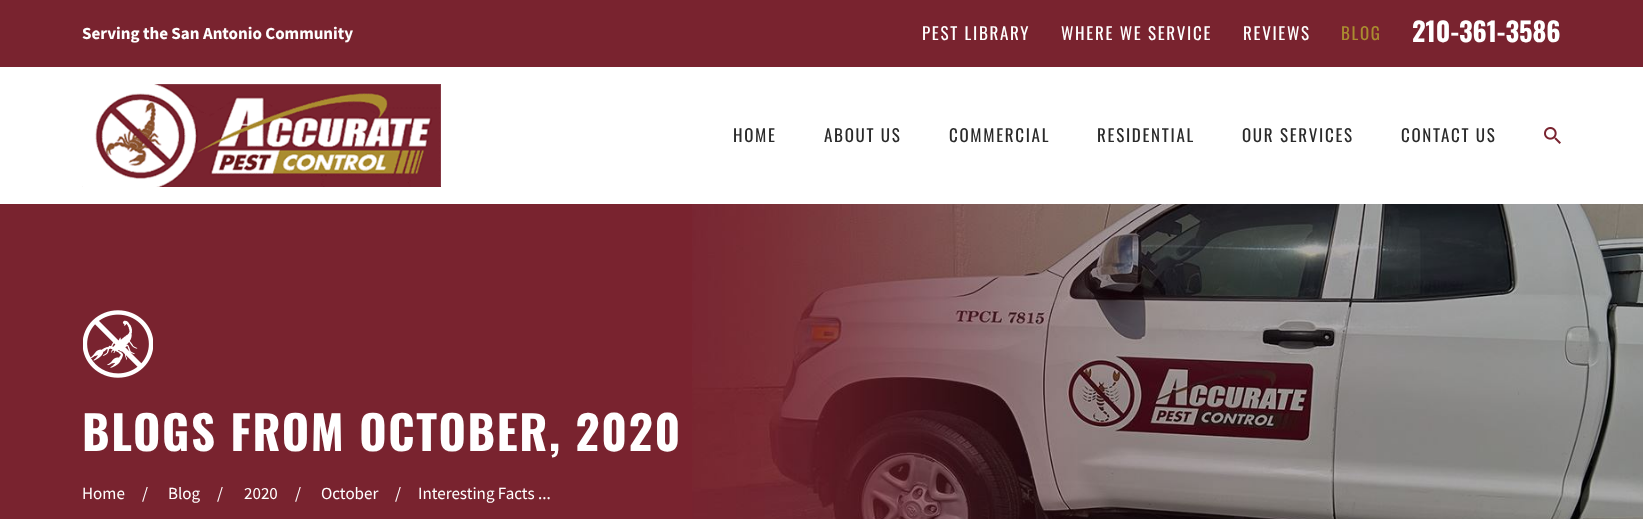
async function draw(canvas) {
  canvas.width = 1643
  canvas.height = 519
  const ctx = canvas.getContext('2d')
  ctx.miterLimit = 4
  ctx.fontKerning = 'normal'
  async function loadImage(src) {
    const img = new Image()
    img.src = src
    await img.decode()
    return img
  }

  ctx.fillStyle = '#fff'
  ctx.fillRect(0, 0, 1643, 519)
  ctx.fillStyle = '#79232f'
  ctx.fillRect(0, 0, 1643, 67)
  ctx.font = 'bold 17px Source Sans Pro'
  ctx.fillStyle = '#fff'
  ctx.fillText('Serving the San Antonio Community', 82, 39)
  ctx.letterSpacing = '1.7px'
  ctx.font = '17px Oswald'
  ctx.fillText('PEST LIBRARY', 922, 40)
  ctx.fillText('WHERE WE SERVICE', 1061, 40)
  ctx.fillText('REVIEWS', 1243, 40)
  ctx.fillStyle = '#aa8c30'
  ctx.fillText('BLOG', 1341, 40)
  ctx.letterSpacing = '0px'
  ctx.font = 'bold 26.5px Oswald'
  ctx.fillStyle = '#fff'
  ctx.fillText('210-361-3586', 1412, 42)
  ctx.drawImage(await loadImage('image0.png'), 82, 84, 359, 103)
  ctx.letterSpacing = '1.7px'
  ctx.font = '17px Oswald'
  ctx.fillStyle = '#2a2a2a'
  ctx.fillText('HOME', 733, 142)
  ctx.fillText('ABOUT US', 824, 142)
  ctx.fillText('COMMERCIAL', 949, 142)
  ctx.fillText('RESIDENTIAL', 1097, 142)
  ctx.fillText('OUR SERVICES', 1242, 142)
  ctx.fillText('CONTACT US', 1401, 142)
  ctx.drawImage(await loadImage('image1.png'), 1544, 127, 17, 17)
  ctx.fillStyle = '#79232f'
  ctx.fillRect(0, 204, 692, 315)
  ctx.drawImage(await loadImage('image2.png'), 83, 310, 70, 68)
  ctx.font = 'bold 46.75px Oswald'
  ctx.fillStyle = '#fff'
  ctx.fillText('BLOGS FROM OCTOBER, 2020', 82, 451)
  ctx.letterSpacing = '0px'
  ctx.font = '17px Source Sans Pro'
  ctx.fillText('Home', 82, 499)
  ctx.fillText('/', 142, 499)
  ctx.fillText('Blog', 168, 499)
  ctx.fillText('/', 217, 499)
  ctx.fillText('2020', 244, 499)
  ctx.fillText('/', 295, 499)
  ctx.fillText('October', 321, 499)
  ctx.fillText('/', 395, 499)
  ctx.fillText('Interesting Facts ...', 418, 499)
  ctx.drawImage(await loadImage('image3.png'), 692, 204, 951, 315)
}

draw(document.querySelector('canvas'))
